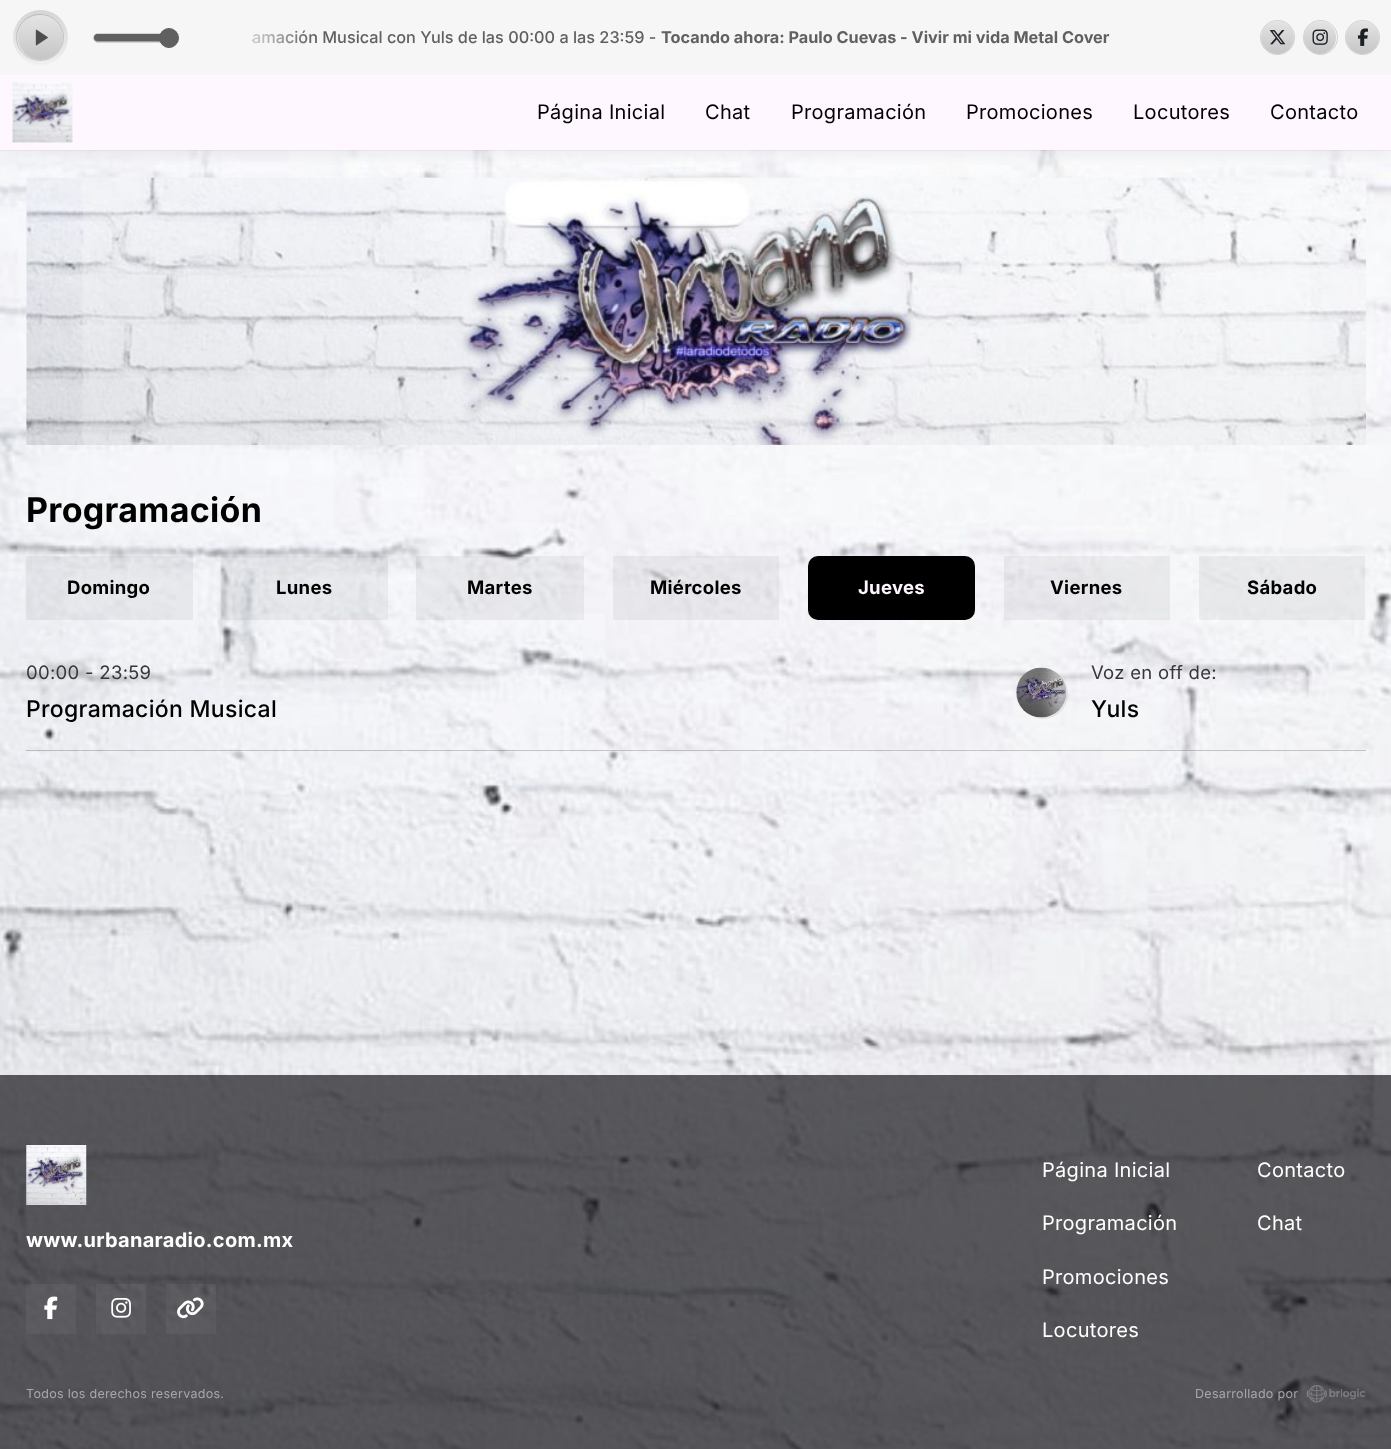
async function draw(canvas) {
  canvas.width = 1391
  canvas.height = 1449
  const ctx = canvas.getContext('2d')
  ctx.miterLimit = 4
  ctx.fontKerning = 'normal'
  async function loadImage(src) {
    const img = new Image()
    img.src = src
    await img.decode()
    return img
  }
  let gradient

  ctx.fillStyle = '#fff'
  ctx.fillRect(0, 0, 1391, 1449)
  ctx.drawImage(await loadImage('image12.png'), 0, 150, 1391, 1299)
  ctx.drawImage(await loadImage('image5.png'), 26, 177, 1341, 268)
  ctx.fillStyle = '#00000012'
  ctx.filter = 'blur(9px)'
  ctx.beginPath()
  ctx.rect(0, 78, 1391, 75)
  ctx.fill()
  ctx.filter = 'none'
  ctx.fillStyle = '#0000000a'
  ctx.filter = 'blur(0.5px)'
  ctx.beginPath()
  ctx.rect(0, 76, 1391, 75)
  ctx.fill()
  ctx.filter = 'none'
  ctx.fillStyle = '#f6f6f6'
  ctx.fillRect(0, 0, 1391, 75)
  gradient = ctx.createLinearGradient(40, 10, 40, 65)
  gradient.addColorStop(0, '#d5d5d5')
  gradient.addColorStop(1, '#f0f0f0')
  ctx.fillStyle = gradient
  ctx.beginPath()
  ctx.arc(40.5, 37.5, 27.5, 0, 2 * Math.PI)
  ctx.fill()
  ctx.beginPath()
  ctx.roundRect(16.5, 14.5, 47, 46, 23)
  ctx.strokeStyle = '#5f5f5f40'
  ctx.stroke()
  gradient = ctx.createLinearGradient(40, 15, 40, 60)
  gradient.addColorStop(0, '#e4e4e4')
  gradient.addColorStop(1, '#c5c5c5')
  ctx.fillStyle = gradient
  ctx.beginPath()
  ctx.arc(40.5, 37.5, 22.5, 0, 2 * Math.PI)
  ctx.fill()
  ctx.drawImage(await loadImage('image0.png'), 35, 29, 13, 17)
  ctx.fillStyle = '#a0a0a0'
  ctx.beginPath()
  ctx.roundRect(93.5, 33.5, 76, 9, 4.5)
  ctx.fill()
  ctx.strokeStyle = '#d4d4d4'
  ctx.stroke()
  ctx.fillStyle = '#606060'
  ctx.beginPath()
  ctx.roundRect(94, 34, 75, 7, 3.5)
  ctx.fill()
  ctx.beginPath()
  ctx.arc(169, 38, 9.5, 0, 2 * Math.PI)
  ctx.fill()
  ctx.strokeStyle = '#606060'
  ctx.stroke()
  ctx.font = '500 16.25px Inter'
  ctx.fillText('amación Musical con Yuls de las 00:00 a las 23:59 -', 252, 43)
  ctx.font = 'bold 16.25px Inter'
  ctx.fillText('Tocando ahora: Paulo Cuevas - Vivir mi vida Metal Cover', 661, 43)
  gradient = ctx.createLinearGradient(210, 38, 313, 37)
  gradient.addColorStop(0.2, '#f6f6f6')
  gradient.addColorStop(1, '#f6f6f600')
  ctx.fillStyle = gradient
  ctx.fillRect(253, 30, 58, 14)
  ctx.beginPath()
  ctx.arc(1277.5, 37.5, 17, 0, 2 * Math.PI)
  ctx.strokeStyle = '#d0d0d0'
  ctx.stroke()
  gradient = ctx.createLinearGradient(1278, 21, 1278, 54)
  gradient.addColorStop(0, '#e4e4e4')
  gradient.addColorStop(1, '#c5c5c5')
  ctx.fillStyle = gradient
  ctx.beginPath()
  ctx.arc(1277.5, 37.5, 16.5, 0, 2 * Math.PI)
  ctx.fill()
  ctx.drawImage(await loadImage('image1.png'), 1269, 30, 17, 15)
  ctx.beginPath()
  ctx.arc(1320.5, 37.5, 17, 0, 2 * Math.PI)
  ctx.stroke()
  gradient = ctx.createLinearGradient(1320, 21, 1320, 54)
  gradient.addColorStop(0, '#e4e4e4')
  gradient.addColorStop(1, '#c5c5c5')
  ctx.fillStyle = gradient
  ctx.beginPath()
  ctx.roundRect(1304, 21, 32, 33, 16)
  ctx.fill()
  ctx.drawImage(await loadImage('image2.png'), 1312, 29, 16, 16)
  ctx.beginPath()
  ctx.arc(1362.5, 37.5, 17, 0, 2 * Math.PI)
  ctx.stroke()
  gradient = ctx.createLinearGradient(1363, 21, 1363, 54)
  gradient.addColorStop(0, '#e4e4e4')
  gradient.addColorStop(1, '#c5c5c5')
  ctx.fillStyle = gradient
  ctx.beginPath()
  ctx.arc(1362.5, 37.5, 16.5, 0, 2 * Math.PI)
  ctx.fill()
  ctx.drawImage(await loadImage('image3.png'), 1357, 28, 11, 18)
  ctx.fillStyle = '#fff7ff'
  ctx.fillRect(0, 75, 1391, 75)
  ctx.drawImage(await loadImage('image4.png'), 12, 82, 61, 61)
  ctx.letterSpacing = '0.3px'
  ctx.font = '20px Inter'
  ctx.fillStyle = '#000'
  ctx.fillText('Página Inicial', 537, 119)
  ctx.fillText('Chat', 705, 119)
  ctx.fillText('Programación', 791, 119)
  ctx.fillText('Promociones', 966, 119)
  ctx.fillText('Locutores', 1133, 119)
  ctx.fillText('Contacto', 1270, 119)
  ctx.font = 'bold 34px Inter'
  ctx.fillText('Programación', 26, 522)
  ctx.fillStyle = '#0000000d'
  ctx.fillRect(26, 556, 167, 64)
  ctx.font = 'bold 18.5px Inter'
  ctx.fillStyle = '#000'
  ctx.fillText('Domingo', 67, 594)
  ctx.fillStyle = '#0000000d'
  ctx.fillRect(221, 556, 167, 64)
  ctx.fillStyle = '#000'
  ctx.fillText('Lunes', 276, 594)
  ctx.fillStyle = '#0000000d'
  ctx.fillRect(416, 556, 168, 64)
  ctx.fillStyle = '#000'
  ctx.fillText('Martes', 467, 594)
  ctx.fillStyle = '#0000000d'
  ctx.fillRect(613, 556, 166, 64)
  ctx.fillStyle = '#000'
  ctx.fillText('Miércoles', 650, 594)
  ctx.beginPath()
  ctx.roundRect(808, 556, 167, 64, 10)
  ctx.fill()
  ctx.fillStyle = '#fff7ff'
  ctx.fillText('Jueves', 858, 594)
  ctx.fillStyle = '#0000000d'
  ctx.fillRect(1004, 556, 166, 64)
  ctx.fillStyle = '#000'
  ctx.fillText('Viernes', 1050, 594)
  ctx.fillStyle = '#0000000d'
  ctx.fillRect(1199, 556, 166, 64)
  ctx.fillStyle = '#000'
  ctx.fillText('Sábado', 1247, 594)
  ctx.fillStyle = '#00000033'
  ctx.fillRect(26, 750, 1340, 1)
  ctx.font = '18.5px Inter'
  ctx.fillStyle = '#373738'
  ctx.fillText('00:00 - 23:59', 26, 679)
  ctx.font = '500 23px Inter'
  ctx.fillStyle = '#000'
  ctx.fillText('Programación Musical', 26, 717)
  ctx.fillStyle = '#00000012'
  ctx.filter = 'blur(0.5px)'
  ctx.beginPath()
  ctx.roundRect(1018, 669, 50, 50, 25)
  ctx.fill()
  ctx.filter = 'none'
  ctx.drawImage(await loadImage('image6.png'), 1016, 667, 50, 51)
  ctx.font = '18.5px Inter'
  ctx.fillStyle = '#373738'
  ctx.fillText('Voz en off de:', 1091, 679)
  ctx.font = '500 23px Inter'
  ctx.fillStyle = '#000'
  ctx.fillText('Yuls', 1091, 717)
  ctx.fillStyle = '#18181db3'
  ctx.fillRect(0, 1075, 1391, 374)
  ctx.drawImage(await loadImage('image7.png'), 26, 1145, 61, 60)
  ctx.font = 'bold 20px Inter'
  ctx.fillStyle = '#fff'
  ctx.fillText('www.urbanaradio.com.mx', 26, 1247)
  ctx.fillStyle = '#ffffff0d'
  ctx.fillRect(26, 1284, 50, 50)
  ctx.drawImage(await loadImage('image8.png'), 44, 1296, 14, 24)
  ctx.fillRect(96, 1284, 50, 50)
  ctx.drawImage(await loadImage('image9.png'), 111, 1298, 20, 20)
  ctx.fillRect(166, 1284, 50, 50)
  ctx.drawImage(await loadImage('image10.png'), 177, 1297, 27, 22)
  ctx.font = '20px Inter'
  ctx.fillStyle = '#fff'
  ctx.fillText('Página Inicial', 1042, 1177)
  ctx.fillText('Contacto', 1257, 1177)
  ctx.fillText('Programación', 1042, 1230)
  ctx.fillText('Chat', 1257, 1230)
  ctx.fillText('Promociones', 1042, 1284)
  ctx.fillText('Locutores', 1042, 1337)
  ctx.font = '12.5px Inter'
  ctx.fillStyle = '#a8a8ab'
  ctx.fillText('Todos los derechos reservados.', 26, 1398)
  ctx.fillText('Desarrollado por', 1195, 1398)
  ctx.drawImage(await loadImage('image11.png'), 1306, 1385, 60, 18)
}

draw(document.querySelector('canvas'))
